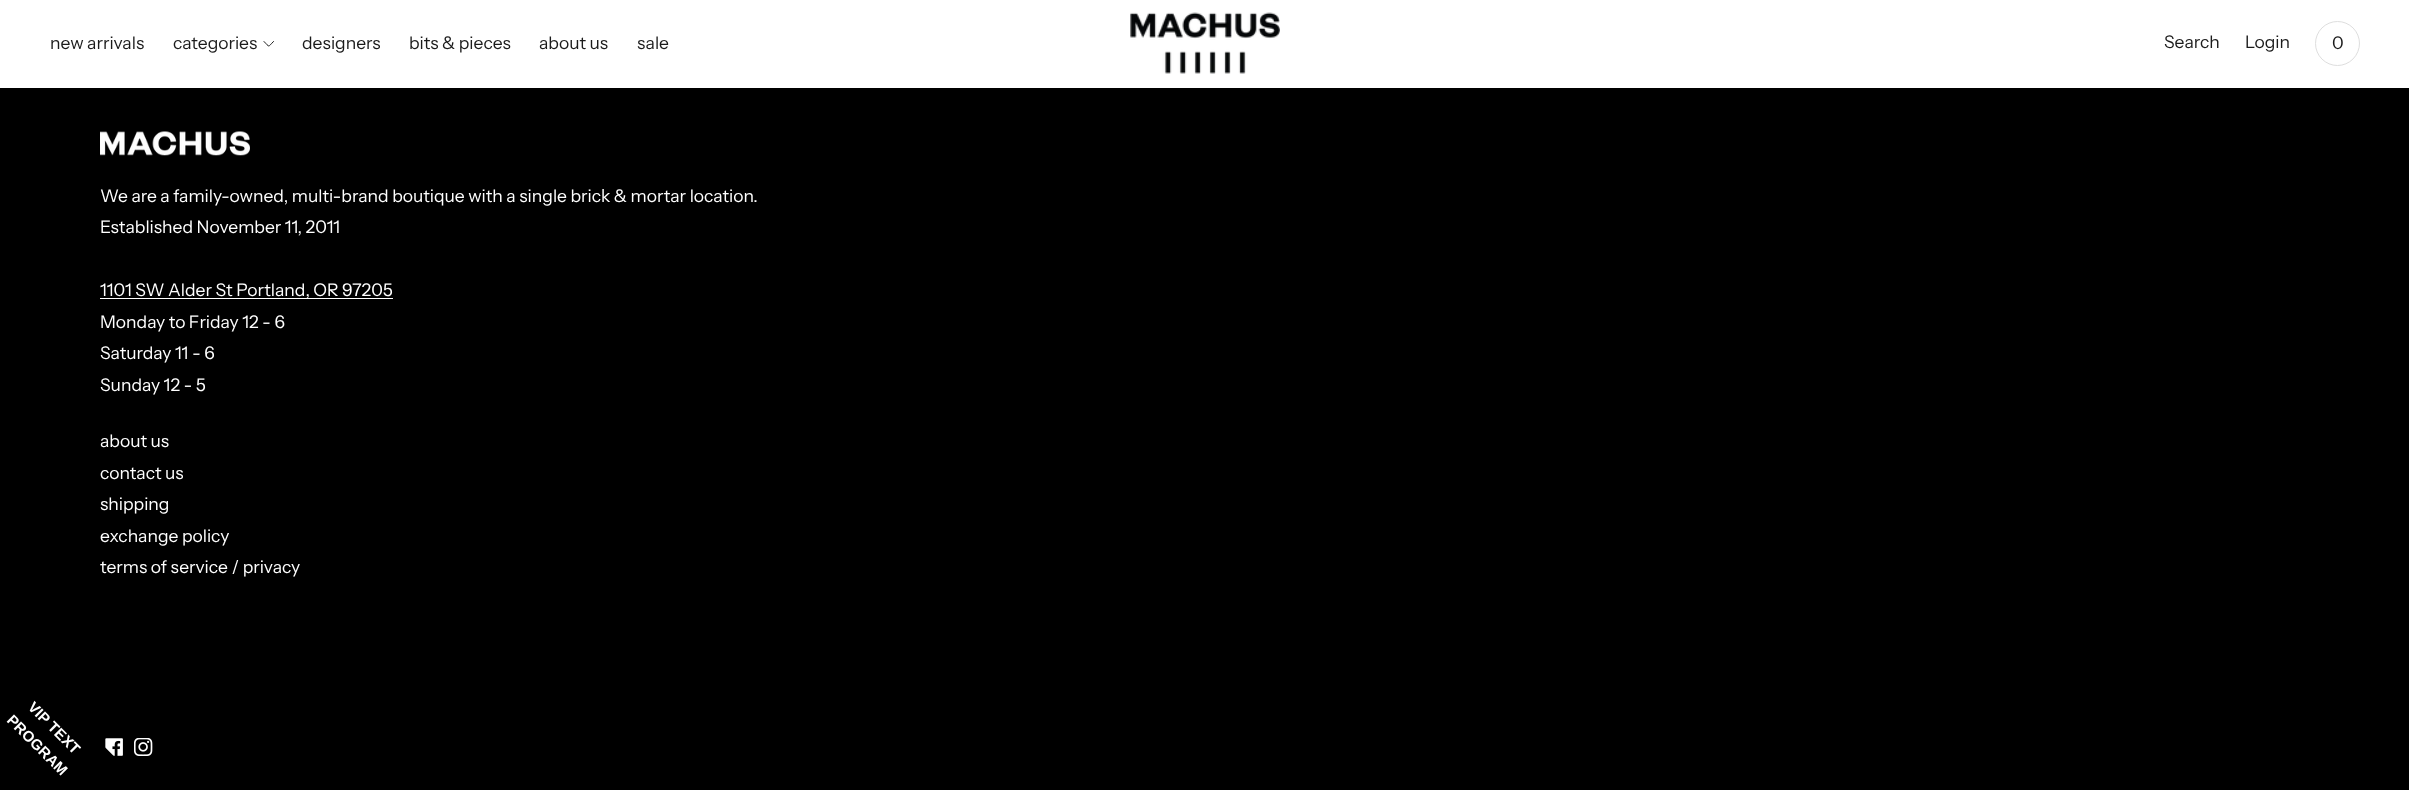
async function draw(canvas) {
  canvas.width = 2409
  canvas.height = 790
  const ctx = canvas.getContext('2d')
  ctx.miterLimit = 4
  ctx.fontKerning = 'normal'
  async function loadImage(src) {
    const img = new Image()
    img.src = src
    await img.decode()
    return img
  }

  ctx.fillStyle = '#000'
  ctx.fillRect(0, 0, 2409, 790)
  ctx.fillStyle = '#fff'
  ctx.fillRect(0, 0, 2409, 88)
  ctx.font = '17.5px Instrument Sans'
  ctx.fillStyle = '#1b1b1b'
  ctx.fillText('new arrivals', 50, 49)
  ctx.fillText('categories', 173, 49)
  ctx.beginPath()
  ctx.moveTo(264, 41.5)
  ctx.bezierCurveTo(270, 47.5, 267.5, 47.5, 273.5, 41.5)
  ctx.strokeStyle = '#1b1b1b'
  ctx.lineCap = 'round'
  ctx.lineJoin = 'round'
  ctx.stroke()
  ctx.fillText('designers', 302, 49)
  ctx.fillText('bits & pieces', 409, 49)
  ctx.fillText('about us', 539, 49)
  ctx.fillText('sale', 637, 49)
  ctx.drawImage(await loadImage('image0.png'), 1130, 12, 150, 62)
  ctx.fillText('Search', 2164, 48)
  ctx.fillText('Login', 2245, 48)
  ctx.beginPath()
  ctx.arc(2337.5, 43.5, 22, 0, 2 * Math.PI)
  ctx.strokeStyle = '#dedede'
  ctx.stroke()
  ctx.fillText('0', 2332, 49)
  ctx.drawImage(await loadImage('image1.png'), 100, 131, 150, 25)
  ctx.fillStyle = '#fff'
  ctx.fillText('We are a family-owned, multi-brand boutique with a single brick & mortar location.', 100, 202)
  ctx.fillText('Established November 11, 2011', 100, 233)
  ctx.fillRect(100, 298, 293, 1)
  ctx.fillText('1101 SW Alder St Portland, OR 97205', 100, 296)
  ctx.fillText('Monday to Friday 12 - 6', 100, 328)
  ctx.fillText('Saturday 11 - 6', 100, 359)
  ctx.fillText('Sunday 12 - 5', 100, 391)
  ctx.fillText('about us', 100, 447)
  ctx.fillText('contact us', 100, 479)
  ctx.fillText('shipping', 100, 510)
  ctx.fillText('exchange policy', 100, 542)
  ctx.fillText('terms of service / privacy', 100, 573)
  ctx.drawImage(await loadImage('image2.png'), 105, 738, 18, 18)
  ctx.drawImage(await loadImage('image3.png'), 134, 738, 19, 18)
  ctx.fillStyle = '#000'
  ctx.beginPath()
  ctx.moveTo(0, 643)
  ctx.lineTo(0, 790)
  ctx.lineTo(148, 790)
  ctx.closePath()
  ctx.fill()
  ctx.font = 'bold 15px Liberation Sans'
  ctx.fillStyle = '#fff'
  ctx.save()
  ctx.translate(27, 708)
  ctx.rotate(45 * Math.PI / 180)
  ctx.fillText('VIP TEXT', 0, 0)
  ctx.restore()
  ctx.save()
  ctx.translate(6, 721)
  ctx.rotate(45 * Math.PI / 180)
  ctx.fillText('PROGRAM', 0, 0)
  ctx.restore()
}

draw(document.querySelector('canvas'))
